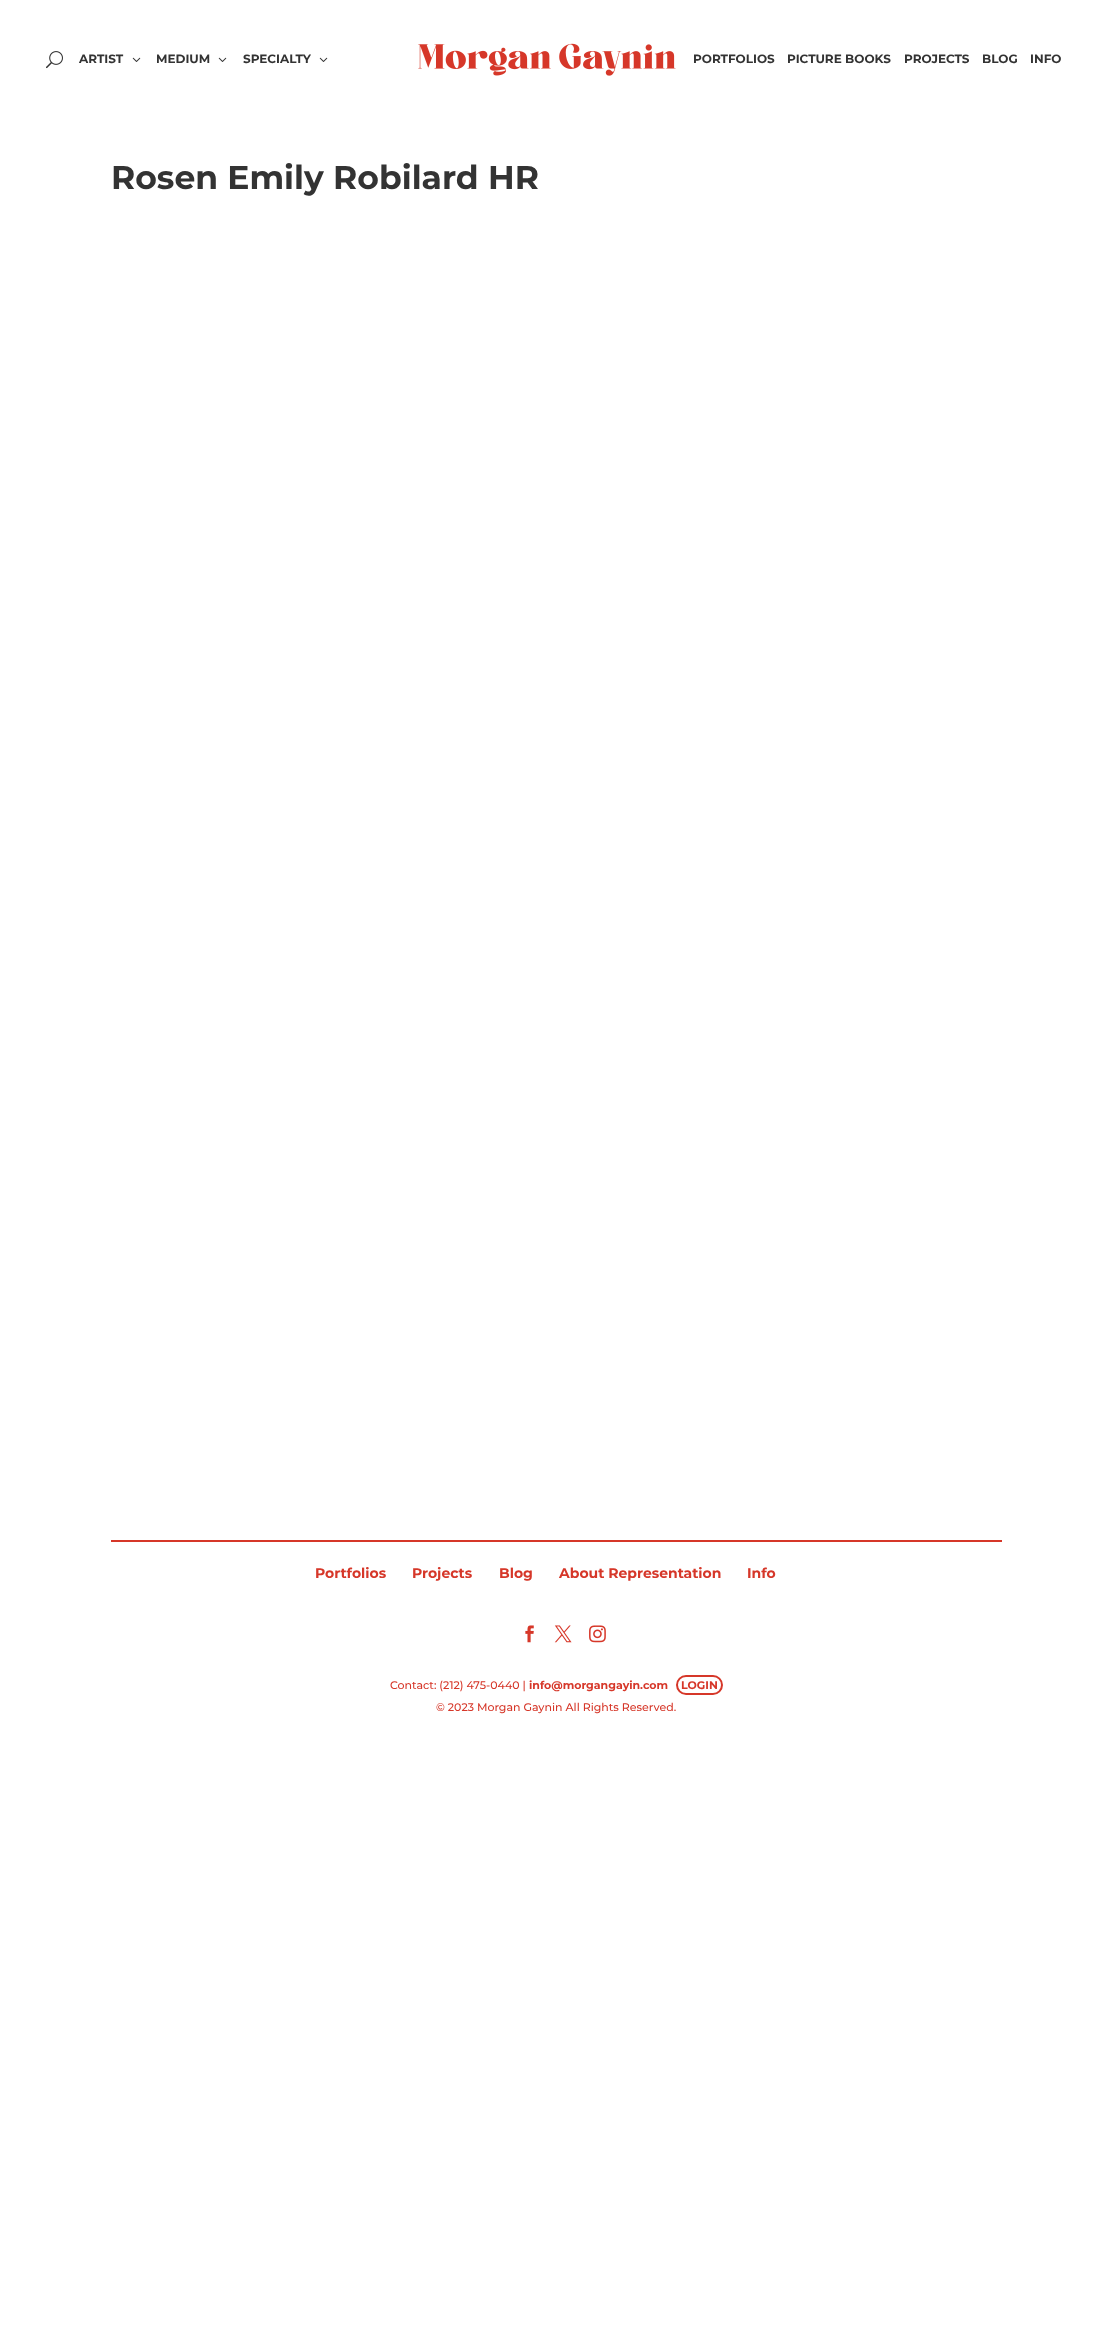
async function draw(canvas) {
  canvas.width = 1113
  canvas.height = 2350
  const ctx = canvas.getContext('2d')
  ctx.miterLimit = 4
  ctx.fontKerning = 'normal'
  async function loadImage(src) {
    const img = new Image()
    img.src = src
    await img.decode()
    return img
  }

  ctx.fillStyle = '#fff'
  ctx.fillRect(0, 0, 1113, 2350)
  ctx.drawImage(await loadImage('image0.png'), 46, 51, 17, 18)
  ctx.font = '100 12px Montserrat'
  ctx.fillStyle = '#333'
  ctx.fillText('ARTIST', 79, 63)
  ctx.drawImage(await loadImage('image1.png'), 132, 57, 9, 5)
  ctx.fillText('MEDIUM', 156, 63)
  ctx.drawImage(await loadImage('image1.png'), 218, 57, 9, 5)
  ctx.fillText('SPECIALTY', 243, 63)
  ctx.drawImage(await loadImage('image1.png'), 319, 57, 9, 5)
  ctx.drawImage(await loadImage('image2.png'), 418, 43, 258, 33)
  ctx.fillText('PORTFOLIOS', 693, 63)
  ctx.fillText('PICTURE BOOKS', 787, 63)
  ctx.fillText('PROJECTS', 904, 63)
  ctx.fillText('BLOG', 982, 63)
  ctx.fillText('INFO', 1030, 63)
  ctx.font = '100 33px Montserrat'
  ctx.fillText('Rosen Emily Robilard HR', 111, 189)
  ctx.fillStyle = '#d63729'
  ctx.fillRect(111, 1540, 891, 2)
  ctx.font = '100 14px Montserrat'
  ctx.fillText('Portfolios', 315, 1578)
  ctx.fillText('Projects', 412, 1578)
  ctx.fillText('Blog', 499, 1578)
  ctx.fillText('About Representation', 559, 1578)
  ctx.fillText('Info', 747, 1578)
  ctx.drawImage(await loadImage('image3.png'), 525, 1625, 9, 18)
  ctx.drawImage(await loadImage('image4.png'), 554, 1625, 18, 18)
  ctx.drawImage(await loadImage('image5.png'), 589, 1625, 17, 18)
  ctx.font = '100 11px "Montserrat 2"'
  ctx.fillText('Contact: (212) 475-0440 |', 390, 1689)
  ctx.font = '100 11px Montserrat'
  ctx.fillText('info@morgangayin.com', 529, 1689)
  ctx.beginPath()
  ctx.roundRect(677, 1676, 45, 18, 9)
  ctx.strokeStyle = '#d63729'
  ctx.lineWidth = 2
  ctx.stroke()
  ctx.fillText('LOGIN', 681, 1689)
  ctx.font = '100 11px "Montserrat 2"'
  ctx.fillText('© 2023 Morgan Gaynin All Rights Reserved.', 436, 1711)
}

draw(document.querySelector('canvas'))
